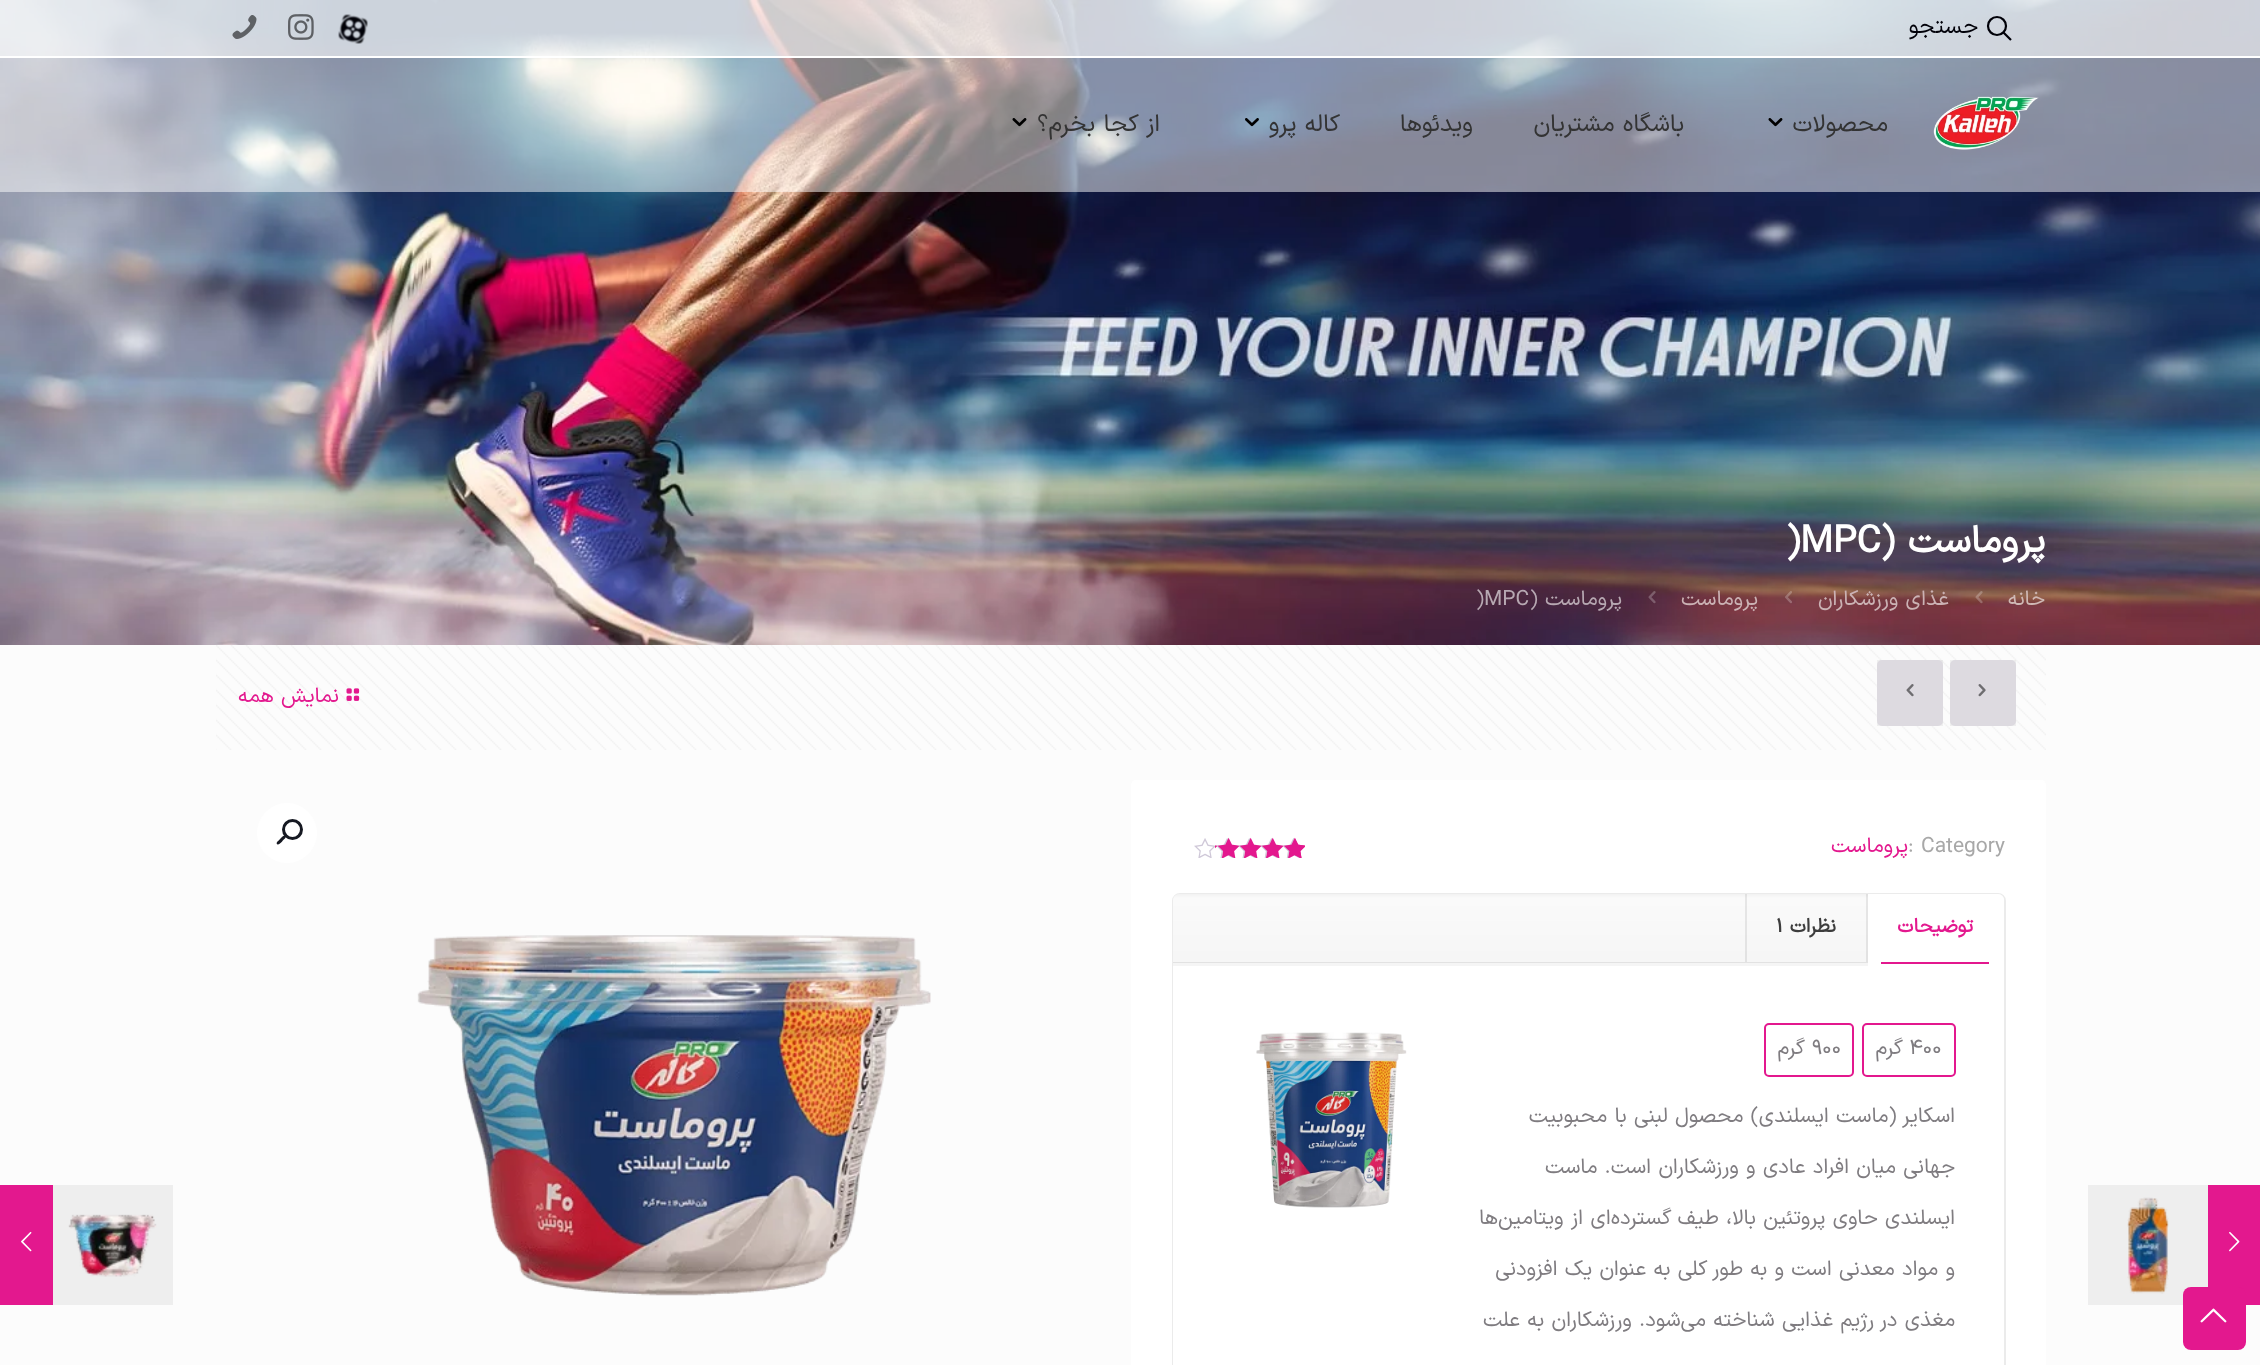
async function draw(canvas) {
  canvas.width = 2260
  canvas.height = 1365
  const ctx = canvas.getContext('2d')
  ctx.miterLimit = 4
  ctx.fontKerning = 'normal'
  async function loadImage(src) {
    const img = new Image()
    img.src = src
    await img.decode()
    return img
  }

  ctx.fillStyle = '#fcfcfc'
  ctx.fillRect(0, 0, 2260, 1365)
  ctx.fillStyle = '#e3188e'
  ctx.fillRect(2208, 1185, 52, 120)
  ctx.drawImage(await loadImage('image0.png'), 2229, 1231, 11, 21)
  ctx.fillStyle = '#eee'
  ctx.fillRect(2088, 1185, 120, 120)
  ctx.drawImage(await loadImage('image1.png'), 2127, 1197, 42, 97)
  ctx.drawImage(await loadImage('image9.png'), 0, 0, 2260, 645)
  ctx.fillStyle = '#ffffffcc'
  ctx.fillRect(0, 0, 2260, 56)
  ctx.beginPath()
  ctx.arc(1997, 26, 9, 0, 2 * Math.PI)
  ctx.strokeStyle = '#000008'
  ctx.lineWidth = 2.2
  ctx.stroke()
  ctx.beginPath()
  ctx.moveTo(2003.5, 32.5)
  ctx.lineTo(2011, 40)
  ctx.stroke()
  ctx.direction = 'rtl'
  ctx.font = '22.5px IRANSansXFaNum'
  ctx.fillStyle = '#000008'
  ctx.fillText('جستجو', 1978, 33)
  ctx.drawImage(await loadImage('image2.png'), 338, 14, 30, 30)
  ctx.drawImage(await loadImage('image3.png'), 288, 14, 26, 26)
  ctx.drawImage(await loadImage('image4.png'), 232, 15, 25, 24)
  ctx.fillStyle = '#ffffff80'
  ctx.fillRect(0, 58, 2260, 134)
  ctx.fillStyle = '#fff'
  ctx.fillRect(0, 56, 2260, 2)
  ctx.drawImage(await loadImage('image5.png'), 1933, 96, 106, 54)
  ctx.font = '24px IRANSansXFaNum'
  ctx.fillStyle = '#333'
  ctx.fillText('محصولات', 1888, 131)
  ctx.drawImage(await loadImage('image6.png'), 1768, 118, 15, 9)
  ctx.fillText('باشگاه مشتریان', 1684, 131)
  ctx.fillText('ویدئوها', 1473, 131)
  ctx.fillText('کاله پرو', 1340, 131)
  ctx.drawImage(await loadImage('image7.png'), 1245, 118, 14, 9)
  ctx.fillText('از کجا بخرم؟', 1160, 131)
  ctx.drawImage(await loadImage('image8.png'), 1012, 118, 15, 9)
  ctx.font = 'bold 37.5px IRANSansXFaNum'
  ctx.fillStyle = '#fff'
  ctx.fillText('پروماست (', 2045, 552)
  ctx.direction = 'ltr'
  ctx.fillText(')MPC', 1786, 552)
  ctx.direction = 'rtl'
  ctx.font = '21px IRANSansXFaNum'
  ctx.fillStyle = '#cfb9b5'
  ctx.fillText('خانه', 2045, 605)
  ctx.drawImage(await loadImage('image10.png'), 1975, 591, 8, 13)
  ctx.fillStyle = '#cbb2b4'
  ctx.fillText('غذای ورزشکاران', 1949, 605)
  ctx.drawImage(await loadImage('image11.png'), 1785, 591, 7, 13)
  ctx.fillText('پروماست', 1758, 605)
  ctx.drawImage(await loadImage('image12.png'), 1648, 591, 8, 13)
  ctx.fillStyle = '#b7a8b2'
  ctx.fillText('پروماست (', 1622, 605)
  ctx.direction = 'ltr'
  ctx.fillText(')MPC', 1476, 605)
  ctx.drawImage(await loadImage('image13.png'), 216, 645, 1830, 105)
  ctx.fillStyle = '#e9e6ed'
  ctx.beginPath()
  ctx.roundRect(1950, 660, 66, 66, 5)
  ctx.fill()
  ctx.drawImage(await loadImage('image14.png'), 1978, 684, 8, 13)
  ctx.fillStyle = '#0000000d'
  ctx.fillRect(1950, 660, 66, 66)
  ctx.fillStyle = '#e9e6ed'
  ctx.beginPath()
  ctx.roundRect(1877, 660, 66, 66, 5)
  ctx.fill()
  ctx.drawImage(await loadImage('image15.png'), 1906, 684, 8, 13)
  ctx.fillStyle = '#0000000d'
  ctx.fillRect(1877, 660, 66, 66)
  ctx.drawImage(await loadImage('image16.png'), 346, 688, 14, 13)
  ctx.direction = 'rtl'
  ctx.fillStyle = '#e3188e'
  ctx.fillText('نمایش همه', 339, 702)
  ctx.fillStyle = '#fff'
  ctx.beginPath()
  ctx.roundRect(1131, 780, 915, 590, 5)
  ctx.fill()
  ctx.direction = 'ltr'
  ctx.fillStyle = '#a8a8a8'
  ctx.fillText(': Category', 1908, 852)
  ctx.direction = 'rtl'
  ctx.fillStyle = '#e3188e'
  ctx.fillText('پروماست', 1908, 852)
  ctx.drawImage(await loadImage('image19.png'), 1194, 838, 111, 20)
  ctx.drawImage(await loadImage('image17.png'), 1215, 837, 90, 21)
  ctx.drawImage(await loadImage('image18.png'), 1295, 838, 10, 20)
  ctx.beginPath()
  ctx.roundRect(1173, 894, 832, 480, 7)
  ctx.strokeStyle = '#ebebeb'
  ctx.lineWidth = 2
  ctx.stroke()
  ctx.drawImage(await loadImage('image20.png'), 1173, 894, 831, 69)
  ctx.fillStyle = '#00000014'
  ctx.fillRect(1173, 962, 695, 1)
  ctx.fillRect(1866, 894, 2, 68)
  ctx.fillStyle = '#fff'
  ctx.beginPath()
  ctx.roundRect(1868, 894, 136, 68, [0, 6, 0, 0])
  ctx.fill()
  ctx.font = 'bold 19.5px IRANSansXFaNum'
  ctx.fillStyle = '#e3188e'
  ctx.fillText('توضیحات', 1973, 932)
  ctx.fillStyle = '#fff'
  ctx.fillRect(1868, 962, 136, 1)
  ctx.fillStyle = '#e3188e'
  ctx.fillRect(1881, 962, 108, 2)
  ctx.fillStyle = '#00000014'
  ctx.fillRect(1745, 894, 2, 68)
  ctx.fillStyle = '#3d3d3d'
  ctx.fillText('نظرات', 1836, 932)
  ctx.direction = 'ltr'
  ctx.fillText('1', 1776, 932)
  ctx.fillStyle = '#fff'
  ctx.fillRect(1173, 966, 1, 399)
  ctx.fillStyle = '#f5f5f5'
  ctx.fillRect(1173, 963, 695, 3)
  ctx.beginPath()
  ctx.roundRect(1863, 1024, 92, 52, 4)
  ctx.strokeStyle = '#e3188e'
  ctx.stroke()
  ctx.font = '21px IRANSansXFaNum'
  ctx.fillStyle = '#7f7c80'
  ctx.fillText('400', 1909, 1054)
  ctx.direction = 'rtl'
  ctx.fillText('گرم', 1903, 1054)
  ctx.beginPath()
  ctx.roundRect(1765, 1024, 88, 52, 4)
  ctx.stroke()
  ctx.direction = 'ltr'
  ctx.fillText('900', 1812, 1054)
  ctx.direction = 'rtl'
  ctx.fillText('گرم', 1805, 1054)
  ctx.fillText('اسکایر (ماست ایسلندی) محصول لبنی با محبوبیت', 1955, 1122)
  ctx.fillText('جهانی میان افراد عادی و ورزشکاران است. ماست', 1955, 1173)
  ctx.fillText('ایسلندی حاوی پروتئین بالا، طیف گسترده‌ای از ویتامین‌ها', 1955, 1224)
  ctx.fillText('و مواد معدنی است و به طور کلی به عنوان یک افزودنی', 1955, 1275)
  ctx.fillText('مغذی در رژیم غذایی شناخته می‌شود. ورزشکاران به علت', 1955, 1326)
  ctx.drawImage(await loadImage('image21.png'), 1256, 1032, 151, 176)
  ctx.fillStyle = '#fff'
  ctx.beginPath()
  ctx.arc(287, 833, 30, 0, 2 * Math.PI)
  ctx.fill()
  ctx.beginPath()
  ctx.arc(292.5, 829.5, 9, 0, 2 * Math.PI)
  ctx.strokeStyle = '#161922'
  ctx.lineWidth = 3
  ctx.stroke()
  ctx.fillStyle = '#161922'
  ctx.beginPath()
  ctx.moveTo(285.5, 836)
  ctx.bezierCurveTo(287, 837.5, 283, 840, 282.5, 841)
  ctx.bezierCurveTo(281.5, 842, 278.5, 846, 277, 844)
  ctx.bezierCurveTo(275.5, 842.5, 279.5, 840, 280, 839)
  ctx.bezierCurveTo(281, 838, 284, 834, 285.5, 836)
  ctx.closePath()
  ctx.fill()
  ctx.drawImage(await loadImage('image22.png'), 417, 935, 514, 361)
  ctx.fillStyle = '#eee'
  ctx.fillRect(53, 1185, 120, 120)
  ctx.drawImage(await loadImage('image23.png'), 68, 1214, 89, 63)
  ctx.fillStyle = '#e3188e'
  ctx.fillRect(0, 1185, 53, 120)
  ctx.drawImage(await loadImage('image24.png'), 21, 1231, 11, 21)
  ctx.beginPath()
  ctx.roundRect(2183, 1287, 63, 63, 8)
  ctx.fill()
  ctx.drawImage(await loadImage('image25.png'), 2200, 1308, 27, 15)
}

draw(document.querySelector('canvas'))
